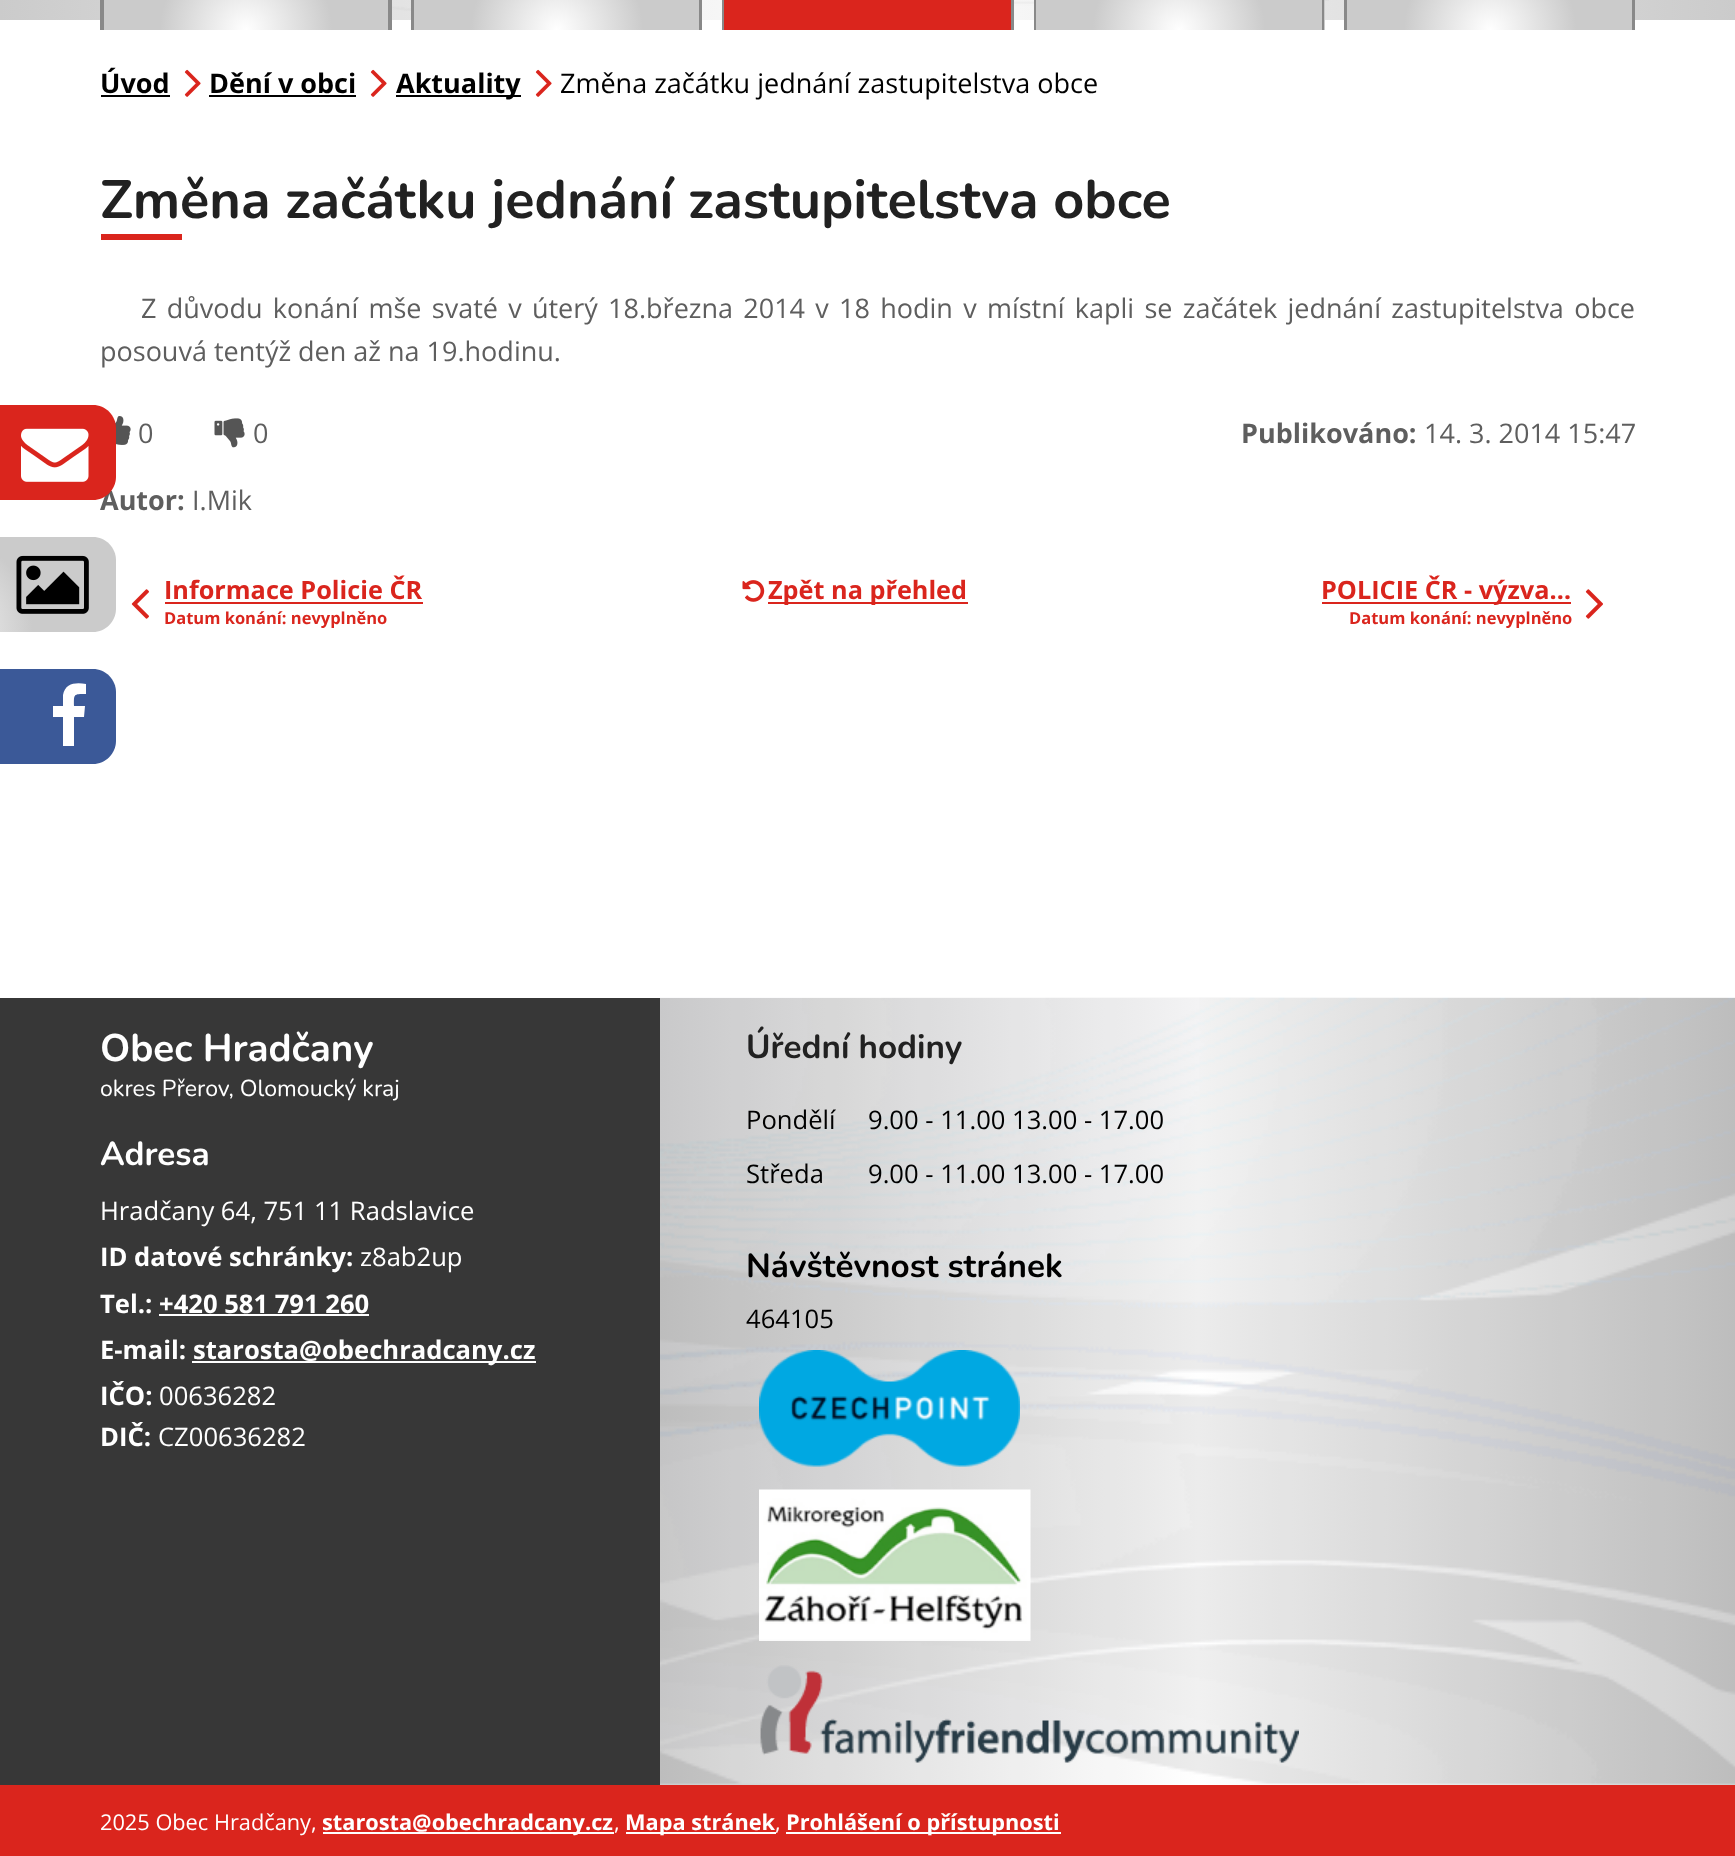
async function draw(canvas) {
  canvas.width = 1735
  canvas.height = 1856
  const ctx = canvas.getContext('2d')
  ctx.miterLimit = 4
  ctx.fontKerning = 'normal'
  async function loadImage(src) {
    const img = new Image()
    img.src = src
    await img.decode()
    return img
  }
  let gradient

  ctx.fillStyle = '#fff'
  ctx.fillRect(0, 0, 1735, 1856)
  gradient = ctx.createLinearGradient(0, -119, 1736, -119)
  gradient.addColorStop(0, '#cbcbcb')
  gradient.addColorStop(0.5, '#fff')
  gradient.addColorStop(1, '#cbcbcb')
  ctx.fillStyle = gradient
  ctx.fillRect(0, 0, 1735, 20)
  ctx.drawImage(await loadImage('image0.png'), 392, 0, 937, 11)
  ctx.drawImage(await loadImage('image4.png'), 115, 416, 16, 29)
  ctx.font = 'bold 27px Open Sans'
  ctx.fillStyle = '#5e5e5e'
  ctx.fillText('Autor:', 100, 510)
  ctx.fillStyle = '#da251d'
  ctx.beginPath()
  ctx.moveTo(-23, 405)
  ctx.lineTo(93, 405)
  ctx.bezierCurveTo(105.5, 405, 116, 415.5, 116, 428)
  ctx.lineTo(116, 477)
  ctx.bezierCurveTo(116, 489.5, 105.5, 500, 93, 500)
  ctx.lineTo(-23, 500)
  ctx.closePath()
  ctx.fill()
  ctx.drawImage(await loadImage('image1.png'), 21, 428, 68, 54)
  gradient = ctx.createRadialGradient(-73, 632, 0, -73, 632, 211)
  gradient.addColorStop(0, '#fff')
  gradient.addColorStop(0.5, '#cbcbcb')
  ctx.fillStyle = gradient
  ctx.beginPath()
  ctx.moveTo(-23, 537)
  ctx.lineTo(93, 537)
  ctx.bezierCurveTo(105.5, 537, 116, 547.5, 116, 560)
  ctx.lineTo(116, 609)
  ctx.bezierCurveTo(116, 621.5, 105.5, 632, 93, 632)
  ctx.lineTo(-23, 632)
  ctx.closePath()
  ctx.fill()
  ctx.drawImage(await loadImage('image2.png'), 16, 555, 73, 59)
  ctx.fillStyle = '#3b5998'
  ctx.beginPath()
  ctx.moveTo(-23, 669)
  ctx.lineTo(93, 669)
  ctx.bezierCurveTo(105.5, 669, 116, 679.5, 116, 692)
  ctx.lineTo(116, 741)
  ctx.bezierCurveTo(116, 753.5, 105.5, 764, 93, 764)
  ctx.lineTo(-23, 764)
  ctx.closePath()
  ctx.fill()
  ctx.fillStyle = '#fff'
  ctx.beginPath()
  ctx.moveTo(86, 684)
  ctx.lineTo(86, 694)
  ctx.bezierCurveTo(73, 694, 74, 694, 74, 706)
  ctx.lineTo(85, 706)
  ctx.lineTo(84, 717)
  ctx.lineTo(74, 717)
  ctx.lineTo(74, 746)
  ctx.lineTo(63, 746)
  ctx.lineTo(63, 717)
  ctx.lineTo(53, 717)
  ctx.lineTo(53, 706)
  ctx.lineTo(63, 706)
  ctx.lineTo(63, 695)
  ctx.bezierCurveTo(65, 683, 76, 682, 86, 684)
  ctx.closePath()
  ctx.fill()
  gradient = ctx.createRadialGradient(246, 30, 0, 246, 30, 172)
  gradient.addColorStop(0, '#fff')
  gradient.addColorStop(0.5, '#cbcbcb')
  ctx.fillStyle = gradient
  ctx.fillRect(104, 0, 284, 30)
  ctx.fillStyle = '#898989'
  ctx.beginPath()
  ctx.moveTo(123, -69)
  ctx.lineTo(369, -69)
  ctx.bezierCurveTo(381, -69, 392, -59, 392, -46)
  ctx.lineTo(392, 30)
  ctx.lineTo(100, 30)
  ctx.lineTo(100, -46)
  ctx.bezierCurveTo(100, -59, 111, -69, 123, -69)
  ctx.closePath()
  ctx.moveTo(123, -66)
  ctx.lineTo(369, -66)
  ctx.bezierCurveTo(380, -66, 388, -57, 388, -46)
  ctx.lineTo(388, 30)
  ctx.lineTo(104, 30)
  ctx.lineTo(104, -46)
  ctx.bezierCurveTo(104, -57, 112, -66, 123, -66)
  ctx.closePath()
  ctx.fill('evenodd')
  gradient = ctx.createRadialGradient(557, 30, 0, 557, 30, 172)
  gradient.addColorStop(0, '#fff')
  gradient.addColorStop(0.5, '#cbcbcb')
  ctx.fillStyle = gradient
  ctx.fillRect(414, 0, 285, 30)
  ctx.fillStyle = '#898989'
  ctx.beginPath()
  ctx.moveTo(434, -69)
  ctx.lineTo(680, -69)
  ctx.bezierCurveTo(692, -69, 702, -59, 702, -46)
  ctx.lineTo(702, 30)
  ctx.lineTo(411, 30)
  ctx.lineTo(411, -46)
  ctx.bezierCurveTo(411, -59, 421, -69, 434, -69)
  ctx.closePath()
  ctx.moveTo(434, -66)
  ctx.lineTo(680, -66)
  ctx.bezierCurveTo(690, -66, 699, -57, 699, -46)
  ctx.lineTo(699, 30)
  ctx.lineTo(414, 30)
  ctx.lineTo(414, -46)
  ctx.bezierCurveTo(414, -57, 423, -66, 434, -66)
  ctx.closePath()
  ctx.fill('evenodd')
  ctx.fillStyle = '#da251d'
  ctx.fillRect(724, 0, 287, 30)
  ctx.fillStyle = '#898989'
  ctx.beginPath()
  ctx.moveTo(744, -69)
  ctx.lineTo(992, -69)
  ctx.bezierCurveTo(1004, -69, 1014, -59, 1014, -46)
  ctx.lineTo(1014, 30)
  ctx.lineTo(722, 30)
  ctx.lineTo(722, -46)
  ctx.bezierCurveTo(722, -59, 732, -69, 744, -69)
  ctx.closePath()
  ctx.moveTo(744, -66)
  ctx.lineTo(992, -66)
  ctx.bezierCurveTo(1002, -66, 1011, -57, 1011, -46)
  ctx.lineTo(1011, 30)
  ctx.lineTo(724, 30)
  ctx.lineTo(724, -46)
  ctx.bezierCurveTo(724, -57, 733, -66, 744, -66)
  ctx.closePath()
  ctx.fill('evenodd')
  gradient = ctx.createRadialGradient(894, 30, 0, 894, 30, 172)
  gradient.addColorStop(0, '#fff')
  gradient.addColorStop(0.5, '#cbcbcb')
  ctx.fillStyle = gradient
  ctx.fillRect(1036, 0, 1, 30)
  gradient = ctx.createRadialGradient(1179, 30, 0, 1179, 30, 172)
  gradient.addColorStop(0, '#fff')
  gradient.addColorStop(0.5, '#cbcbcb')
  ctx.fillStyle = gradient
  ctx.fillRect(1037, 0, 285, 30)
  gradient = ctx.createRadialGradient(1464, 30, 0, 1464, 30, 172)
  gradient.addColorStop(0, '#fff')
  gradient.addColorStop(0.5, '#cbcbcb')
  ctx.fillStyle = gradient
  ctx.fillRect(1324, 0, 1, 30)
  ctx.fillStyle = '#898989'
  ctx.beginPath()
  ctx.moveTo(1056, -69)
  ctx.lineTo(1302, -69)
  ctx.bezierCurveTo(1314, -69, 1324, -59, 1324, -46)
  ctx.lineTo(1324, 30)
  ctx.lineTo(1034, 30)
  ctx.lineTo(1034, -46)
  ctx.bezierCurveTo(1034, -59, 1044, -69, 1056, -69)
  ctx.closePath()
  ctx.moveTo(1056, -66)
  ctx.lineTo(1302, -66)
  ctx.bezierCurveTo(1313, -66, 1322, -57, 1322, -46)
  ctx.lineTo(1322, 30)
  ctx.lineTo(1036, 30)
  ctx.lineTo(1036, -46)
  ctx.bezierCurveTo(1036, -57, 1045, -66, 1056, -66)
  ctx.closePath()
  ctx.fill('evenodd')
  gradient = ctx.createRadialGradient(1490, 30, 0, 1490, 30, 172)
  gradient.addColorStop(0, '#fff')
  gradient.addColorStop(0.5, '#cbcbcb')
  ctx.fillStyle = gradient
  ctx.fillRect(1347, 0, 285, 30)
  ctx.fillStyle = '#898989'
  ctx.beginPath()
  ctx.moveTo(1366, -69)
  ctx.lineTo(1612, -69)
  ctx.bezierCurveTo(1625, -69, 1635, -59, 1635, -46)
  ctx.lineTo(1635, 30)
  ctx.lineTo(1344, 30)
  ctx.lineTo(1344, -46)
  ctx.bezierCurveTo(1344, -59, 1354, -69, 1366, -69)
  ctx.closePath()
  ctx.moveTo(1366, -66)
  ctx.lineTo(1612, -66)
  ctx.bezierCurveTo(1623, -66, 1632, -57, 1632, -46)
  ctx.lineTo(1632, 30)
  ctx.lineTo(1347, 30)
  ctx.lineTo(1347, -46)
  ctx.bezierCurveTo(1347, -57, 1356, -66, 1366, -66)
  ctx.closePath()
  ctx.fill('evenodd')
  ctx.fillStyle = '#000'
  ctx.fillText('Úvod', 100, 93)
  ctx.fillRect(101, 95, 69, 2)
  ctx.drawImage(await loadImage('image3.png'), 184, 69, 17, 28)
  ctx.fillText('Dění v obci', 209, 93)
  ctx.fillRect(209, 95, 147, 2)
  ctx.drawImage(await loadImage('image3.png'), 370, 69, 17, 28)
  ctx.fillRect(396, 95, 125, 2)
  ctx.fillText('Aktuality', 396, 93)
  ctx.drawImage(await loadImage('image3.png'), 535, 69, 17, 28)
  ctx.font = '27px Open Sans'
  ctx.fillText('Změna začátku jednání zastupitelstva obce', 560, 93)
  ctx.font = 'bold 54px Nunito'
  ctx.fillStyle = '#212121'
  ctx.fillText('Změna začátku jednání zastupitelstva obce', 100, 218)
  ctx.fillStyle = '#da251d'
  ctx.fillRect(101, 234, 81, 6)
  ctx.wordSpacing = '3.25px'
  ctx.font = '27px Open Sans'
  ctx.fillStyle = '#5e5e5e'
  ctx.fillText('Z důvodu konání mše svaté v úterý 18.března 2014 v 18 hodin v místní kapli se začátek jednání zastupitelstva obce', 141, 318)
  ctx.wordSpacing = '0px'
  ctx.fillText('posouvá tentýž den až na 19.hodinu.', 100, 361)
  ctx.fillText('0', 138, 443)
  ctx.drawImage(await loadImage('image5.png'), 214, 418, 31, 30)
  ctx.fillText('0', 253, 443)
  ctx.font = 'bold 27px Open Sans'
  ctx.fillText('Publikováno:', 1241, 443)
  ctx.font = '27px Open Sans'
  ctx.fillText('14. 3. 2014 15:47', 1424, 443)
  ctx.fillText('I.Mik', 192, 510)
  ctx.drawImage(await loadImage('image6.png'), 131, 589, 18, 30)
  ctx.font = 'bold 25.25px Open Sans'
  ctx.fillStyle = '#da251d'
  ctx.fillText('Informace Policie ČR', 164, 599)
  ctx.fillRect(165, 602, 258, 2)
  ctx.font = 'bold 16.5px Open Sans'
  ctx.fillText('Datum konání: nevyplněno', 164, 624)
  ctx.drawImage(await loadImage('image7.png'), 742, 580, 23, 22)
  ctx.fillRect(768, 602, 200, 2)
  ctx.font = 'bold 25.25px Open Sans'
  ctx.fillText('Zpět na přehled', 768, 599)
  ctx.fillRect(1322, 602, 249, 2)
  ctx.fillText('POLICIE ČR - výzva…', 1321, 599)
  ctx.font = 'bold 16.5px Open Sans'
  ctx.fillText('Datum konání: nevyplněno', 1349, 624)
  ctx.drawImage(await loadImage('image8.png'), 1585, 589, 18, 30)
  ctx.fillStyle = '#373737'
  ctx.fillRect(0, 998, 660, 787)
  ctx.font = 'bold 38.5px Nunito'
  ctx.fillStyle = '#fff'
  ctx.fillText('Obec Hradčany', 100, 1061)
  ctx.font = '23.1px Nunito'
  ctx.fillText('okres Přerov, Olomoucký kraj', 100, 1096)
  ctx.font = 'bold 33.25px Nunito'
  ctx.fillText('Adresa', 100, 1165)
  ctx.font = '25.6px Open Sans'
  ctx.fillText('Hradčany 64, 751 11 Radslavice', 100, 1220)
  ctx.font = 'bold 25.6px Open Sans'
  ctx.fillText('ID datové schránky:', 100, 1266)
  ctx.font = '25.6px Open Sans'
  ctx.fillText('z8ab2up', 360, 1266)
  ctx.font = 'bold 25.6px Open Sans'
  ctx.fillText('Tel.: +420 581 791 260', 100, 1313)
  ctx.fillRect(159, 1314, 210, 2)
  ctx.fillText('E-mail:', 100, 1359)
  ctx.fillRect(192, 1361, 344, 2)
  ctx.fillText('starosta@obechradcany.cz', 193, 1359)
  ctx.fillText('IČO:', 100, 1405)
  ctx.font = '25.6px Open Sans'
  ctx.fillText('00636282', 159, 1405)
  ctx.font = 'bold 25.6px Open Sans'
  ctx.fillText('DIČ:', 100, 1446)
  ctx.font = '25.6px Open Sans'
  ctx.fillText('CZ00636282', 158, 1446)
  gradient = ctx.createLinearGradient(660, 1391, 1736, 1391)
  gradient.addColorStop(0, '#cbcbcb')
  gradient.addColorStop(0.5, '#fff')
  gradient.addColorStop(1, '#cbcbcb')
  ctx.fillStyle = gradient
  ctx.fillRect(660, 998, 1075, 787)
  ctx.drawImage(await loadImage('image9.png'), 660, 997, 1075, 787)
  ctx.font = 'bold 33.25px Nunito'
  ctx.fillStyle = '#212121'
  ctx.fillText('Úřední hodiny', 746, 1058)
  ctx.font = '25.6px Open Sans'
  ctx.fillStyle = '#000'
  ctx.fillText('Pondělí', 746, 1129)
  ctx.fillText('9.00 - 11.00 13.00 - 17.00', 868, 1129)
  ctx.fillText('Středa', 746, 1183)
  ctx.fillText('9.00 - 11.00 13.00 - 17.00', 868, 1183)
  ctx.font = 'bold 33.25px Nunito'
  ctx.fillText('Návštěvnost stránek', 746, 1277)
  ctx.font = '25.6px Open Sans'
  ctx.fillText('464105', 746, 1328)
  ctx.drawImage(await loadImage('image10.png'), 759, 1350, 261, 117)
  ctx.drawImage(await loadImage('image11.png'), 759, 1489, 272, 152)
  ctx.drawImage(await loadImage('image12.png'), 760, 1665, 539, 98)
  ctx.fillStyle = '#da251d'
  ctx.fillRect(0, 1785, 1735, 71)
  ctx.font = '21.75px Open Sans'
  ctx.fillStyle = '#fff'
  ctx.fillText('2025 Obec Hradčany,', 100, 1830)
  ctx.fillRect(323, 1832, 291, 2)
  ctx.font = 'bold 21.75px Open Sans'
  ctx.fillText('starosta@obechradcany.cz', 322, 1830)
  ctx.font = '21.75px Open Sans'
  ctx.fillText(',', 614, 1830)
  ctx.fillRect(626, 1832, 150, 2)
  ctx.font = 'bold 21.75px Open Sans'
  ctx.fillText('Mapa stránek', 625, 1830)
  ctx.font = '21.75px Open Sans'
  ctx.fillText(',', 775, 1830)
  ctx.fillRect(786, 1832, 275, 2)
  ctx.font = 'bold 21.75px Open Sans'
  ctx.fillText('Prohlášení o přístupnosti', 786, 1830)
}

draw(document.querySelector('canvas'))
